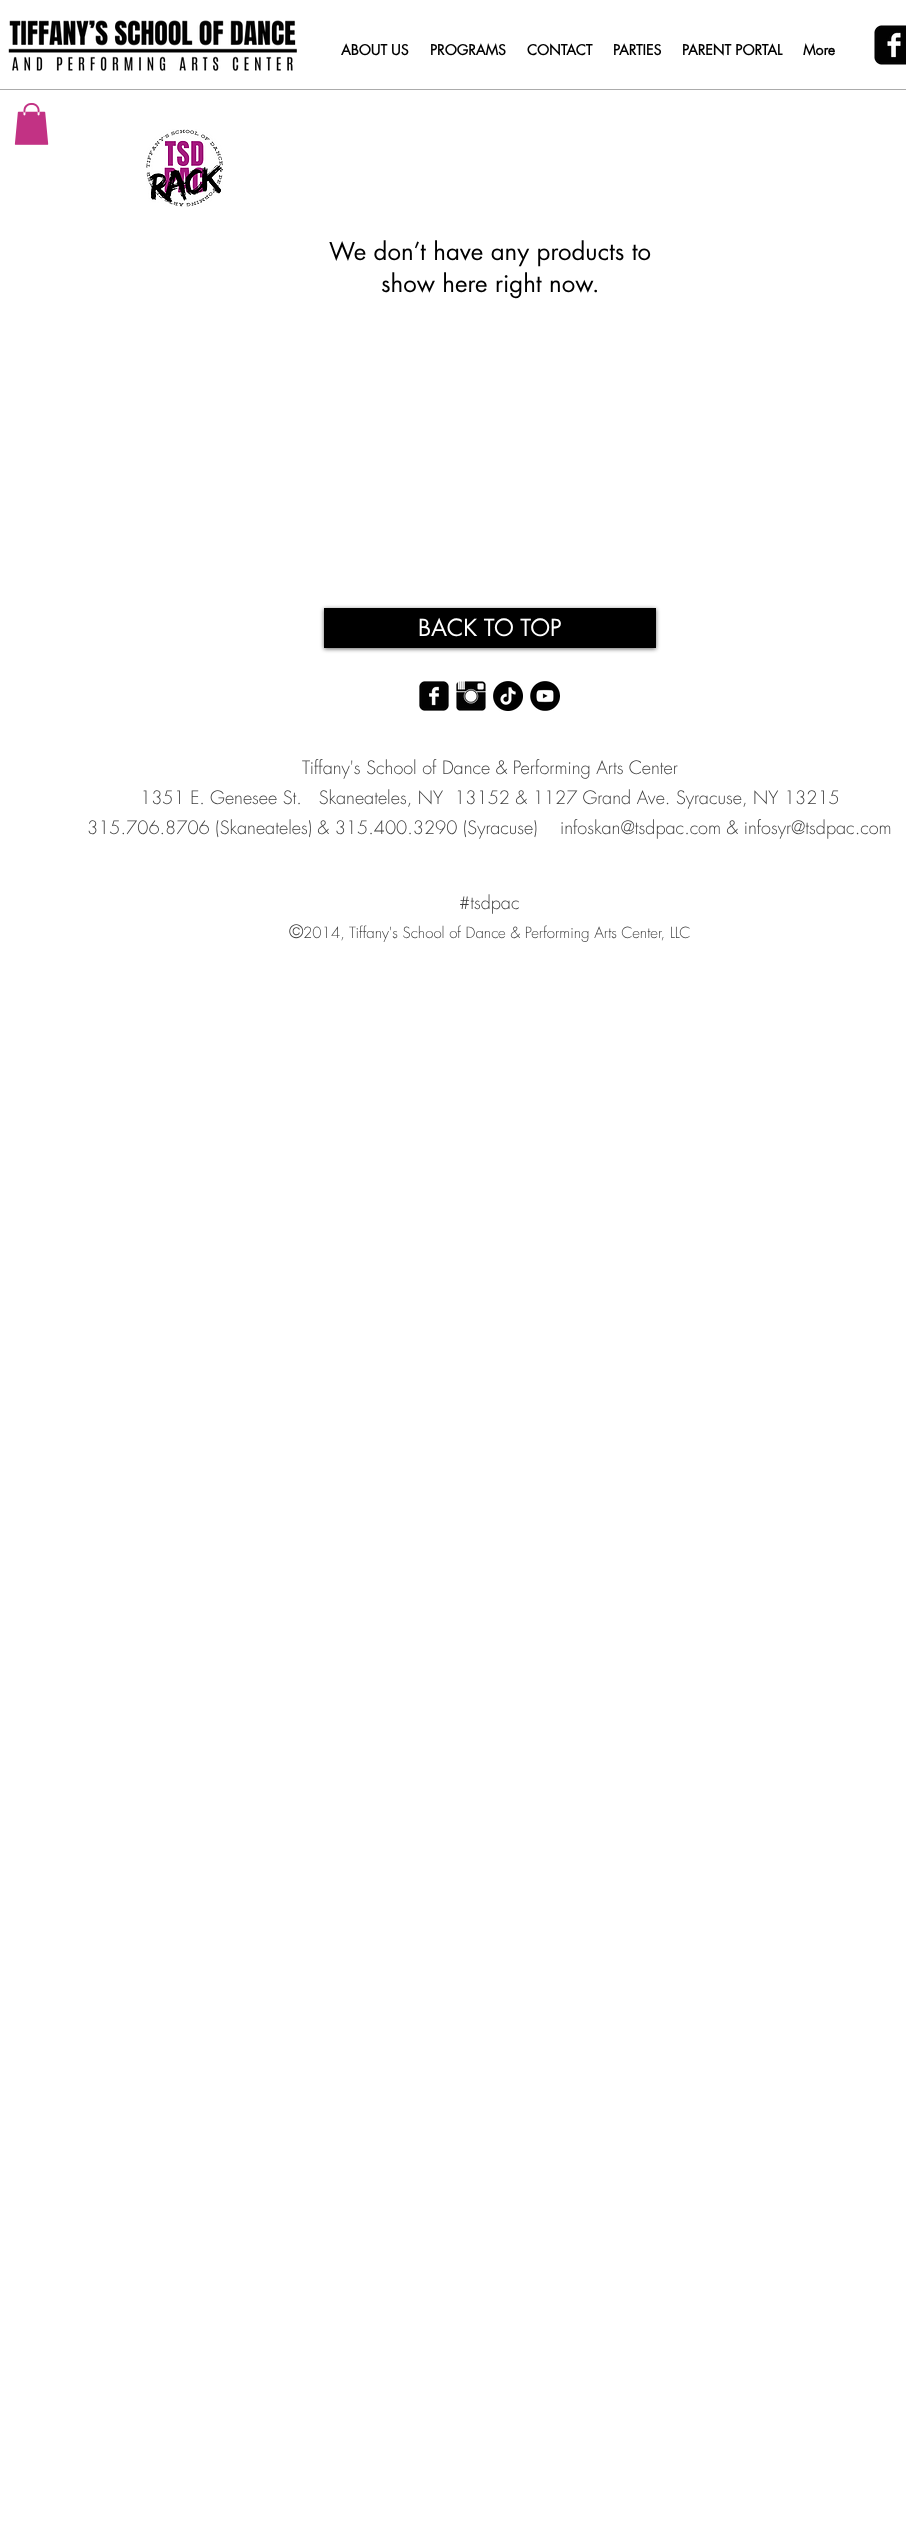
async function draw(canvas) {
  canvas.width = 906
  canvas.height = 2524
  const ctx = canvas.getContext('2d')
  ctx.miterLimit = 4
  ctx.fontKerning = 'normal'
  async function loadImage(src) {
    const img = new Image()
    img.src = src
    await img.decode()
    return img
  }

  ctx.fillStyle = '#fff'
  ctx.fillRect(0, 0, 906, 2524)
  ctx.drawImage(await loadImage('image0.png'), 8, 20, 289, 51)
  ctx.font = 'bold 14px futura'
  ctx.fillStyle = '#000'
  ctx.fillText('ABOUT US', 341, 55)
  ctx.fillText('PROGRAMS', 430, 55)
  ctx.fillText('CONTACT', 527, 55)
  ctx.fillText('PARTIES', 613, 55)
  ctx.fillText('PARENT PORTAL', 682, 55)
  ctx.fillText('More', 803, 55)
  ctx.drawImage(await loadImage('image1.png'), 874, 25, 32, 40)
  ctx.fillStyle = '#ababab'
  ctx.fillRect(0, 89, 906, 1)
  ctx.drawImage(await loadImage('image2.png'), 14, 103, 35, 42)
  ctx.drawImage(await loadImage('image3.png'), 146, 129, 77, 78)
  ctx.font = '24px futura'
  ctx.fillStyle = '#000'
  ctx.fillText('We don’t have any products to', 329, 260)
  ctx.fillText('show here right now.', 381, 292)
  ctx.fillStyle = '#00000099'
  ctx.filter = 'blur(2px)'
  ctx.beginPath()
  ctx.rect(324, 609, 332, 40)
  ctx.fill()
  ctx.filter = 'none'
  ctx.fillStyle = '#000'
  ctx.fillRect(324, 608, 332, 40)
  ctx.font = '23px futura'
  ctx.fillStyle = '#fff'
  ctx.fillText('BACK TO TOP', 418, 636)
  ctx.drawImage(await loadImage('image4.png'), 419, 681, 30, 30)
  ctx.drawImage(await loadImage('image5.png'), 456, 681, 30, 30)
  ctx.drawImage(await loadImage('image6.png'), 493, 681, 30, 30)
  ctx.drawImage(await loadImage('image7.png'), 530, 681, 30, 30)
  ctx.font = '300 18px futura'
  ctx.fillStyle = '#3e3e3e'
  ctx.fillText('Tiffany\'s School of Dance & Performing Arts Center', 302, 774)
  ctx.fillText('1351 E. Genesee St.   Skaneateles, NY  13152 & 1127 Grand Ave. Syracuse, NY 13215', 140, 804)
  ctx.fillText('315.706.8706 (Skaneateles) & 315.400.3290 (Syracuse)', 87, 834)
  ctx.fillText('infoskan@tsdpac.com & infosyr@tsdpac.com', 560, 834)
  ctx.fillText('#tsdpac', 459, 909)
  ctx.fillText('©', 289, 938)
  ctx.font = '300 15px futura'
  ctx.fillText('2014, Tiffany\'s School of Dance & Performing Arts Center, LLC', 303, 938)
}

draw(document.querySelector('canvas'))
